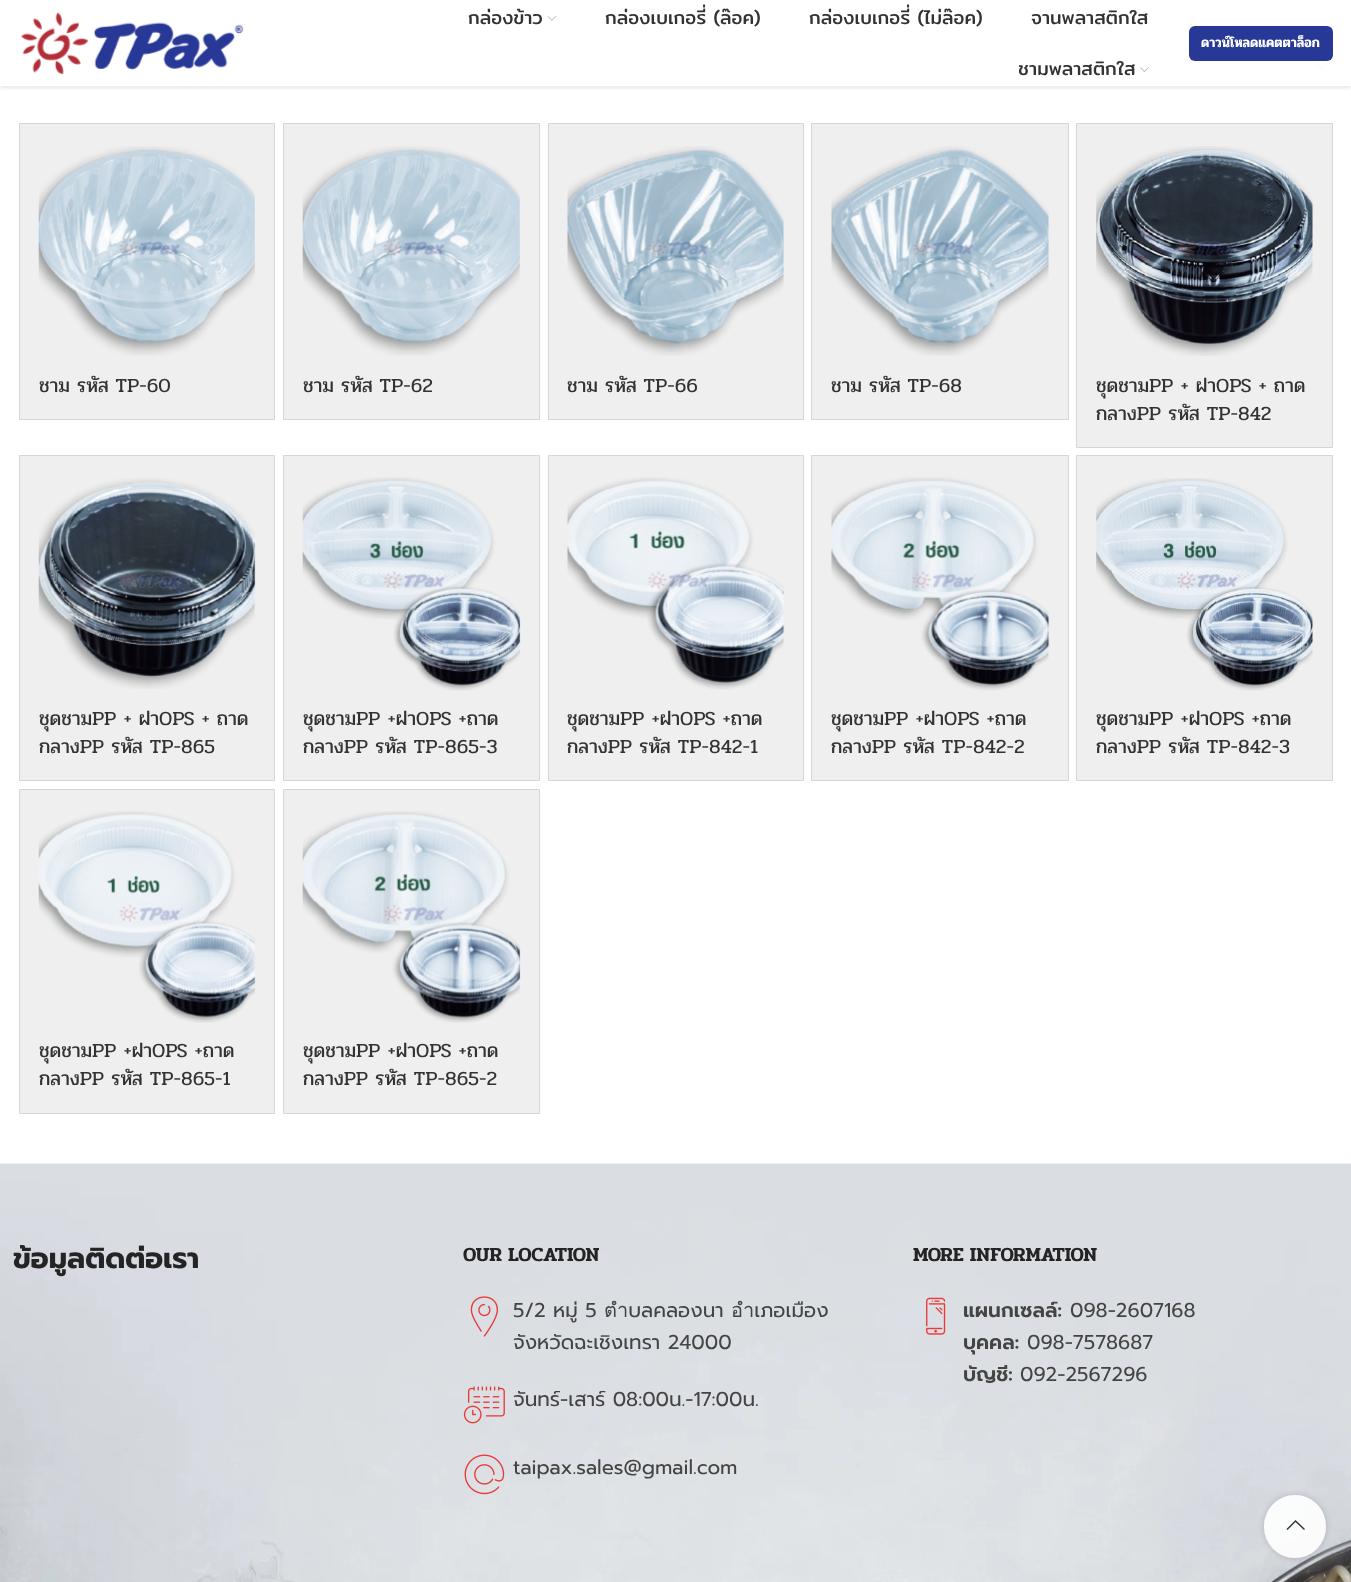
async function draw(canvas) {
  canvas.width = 1351
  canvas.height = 1582
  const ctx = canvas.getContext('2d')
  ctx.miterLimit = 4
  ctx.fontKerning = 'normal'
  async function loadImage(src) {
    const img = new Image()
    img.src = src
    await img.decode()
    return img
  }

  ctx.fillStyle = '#fff'
  ctx.fillRect(0, 0, 1351, 1582)
  ctx.beginPath()
  ctx.moveTo(1315.5, 63)
  ctx.lineTo(1321, 68.5)
  ctx.lineTo(1326, 63)
  ctx.strokeStyle = '#fcfcfc'
  ctx.lineWidth = 1.8
  ctx.stroke()
  ctx.save()
  ctx.beginPath()
  ctx.rect(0, 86, 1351, 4)
  ctx.clip()
  ctx.fillStyle = '#0000001a'
  ctx.filter = 'blur(2px)'
  ctx.beginPath()
  ctx.rect(0, 1, 1351, 87)
  ctx.fill()
  ctx.filter = 'none'
  ctx.restore()
  ctx.drawImage(await loadImage('image0.png'), 20, 12, 224, 63)
  ctx.font = '18.75px Mitr'
  ctx.fillStyle = '#333'
  ctx.fillText('กล่องข้าว', 468, 24)
  ctx.drawImage(await loadImage('image1.png'), 547, 16, 10, 5)
  ctx.fillText('กล่องเบเกอรี่ (ล๊อค)', 605, 24)
  ctx.fillText('กล่องเบเกอรี่ (ไม่ล๊อค)', 809, 24)
  ctx.fillText('จานพลาสติกใส', 1031, 24)
  ctx.fillText('ชามพลาสติกใส', 1018, 75)
  ctx.drawImage(await loadImage('image2.png'), 1140, 67, 9, 5)
  ctx.fillStyle = '#283896'
  ctx.beginPath()
  ctx.roundRect(1189, 26, 144, 35, 6)
  ctx.fill()
  ctx.font = '600 13.75px Pridi'
  ctx.fillStyle = '#fff'
  ctx.fillText('ดาวน์โหลดแคตตาล็อก', 1201, 47)
  ctx.fillStyle = '#efefef'
  ctx.beginPath()
  ctx.rect(19.5, 123.5, 255, 296)
  ctx.fill()
  ctx.strokeStyle = '#d6d6d6'
  ctx.lineWidth = 1
  ctx.stroke()
  ctx.drawImage(await loadImage('image3.png'), 38, 146, 217, 210)
  ctx.font = '20px Pridi'
  ctx.fillStyle = '#333'
  ctx.fillText('ชาม รหัส TP-60', 39, 392)
  ctx.fillStyle = '#efefef'
  ctx.beginPath()
  ctx.rect(283.5, 123.5, 256, 296)
  ctx.fill()
  ctx.stroke()
  ctx.drawImage(await loadImage('image4.png'), 302, 146, 218, 210)
  ctx.fillStyle = '#333'
  ctx.fillText('ชาม รหัส TP-62', 303, 392)
  ctx.fillStyle = '#efefef'
  ctx.beginPath()
  ctx.rect(548.5, 123.5, 255, 296)
  ctx.fill()
  ctx.stroke()
  ctx.drawImage(await loadImage('image5.png'), 567, 146, 217, 210)
  ctx.fillStyle = '#333'
  ctx.fillText('ชาม รหัส TP-66', 567, 392)
  ctx.fillStyle = '#efefef'
  ctx.beginPath()
  ctx.rect(811.5, 123.5, 257, 296)
  ctx.fill()
  ctx.stroke()
  ctx.drawImage(await loadImage('image6.png'), 831, 146, 218, 210)
  ctx.fillStyle = '#333'
  ctx.fillText('ชาม รหัส TP-68', 831, 392)
  ctx.fillStyle = '#efefef'
  ctx.beginPath()
  ctx.rect(1076.5, 123.5, 256, 324)
  ctx.fill()
  ctx.stroke()
  ctx.drawImage(await loadImage('image7.png'), 1096, 146, 217, 210)
  ctx.fillStyle = '#333'
  ctx.fillText('ชุดชามPP + ฝาOPS + ถาด', 1096, 392)
  ctx.fillText('กลางPP รหัส TP-842', 1096, 420)
  ctx.fillStyle = '#efefef'
  ctx.beginPath()
  ctx.rect(19.5, 455.5, 255, 325)
  ctx.fill()
  ctx.stroke()
  ctx.drawImage(await loadImage('image8.png'), 38, 478, 218, 211)
  ctx.fillStyle = '#333'
  ctx.fillText('ชุดชามPP + ฝาOPS + ถาด', 39, 725)
  ctx.fillText('กลางPP รหัส TP-865', 39, 753)
  ctx.fillStyle = '#efefef'
  ctx.beginPath()
  ctx.rect(283.5, 455.5, 256, 325)
  ctx.fill()
  ctx.stroke()
  ctx.drawImage(await loadImage('image9.png'), 302, 477, 219, 214)
  ctx.fillStyle = '#333'
  ctx.fillText('ชุดชามPP +ฝาOPS +ถาด', 303, 725)
  ctx.fillText('กลางPP รหัส TP-865-3', 303, 753)
  ctx.fillStyle = '#efefef'
  ctx.beginPath()
  ctx.rect(548.5, 455.5, 255, 325)
  ctx.fill()
  ctx.stroke()
  ctx.drawImage(await loadImage('image10.png'), 567, 477, 218, 213)
  ctx.fillStyle = '#333'
  ctx.fillText('ชุดชามPP +ฝาOPS +ถาด', 567, 725)
  ctx.fillText('กลางPP รหัส TP-842-1', 567, 753)
  ctx.fillStyle = '#efefef'
  ctx.beginPath()
  ctx.rect(811.5, 455.5, 257, 325)
  ctx.fill()
  ctx.stroke()
  ctx.drawImage(await loadImage('image11.png'), 831, 477, 219, 214)
  ctx.fillStyle = '#333'
  ctx.fillText('ชุดชามPP +ฝาOPS +ถาด', 831, 725)
  ctx.fillText('กลางPP รหัส TP-842-2', 831, 753)
  ctx.fillStyle = '#efefef'
  ctx.beginPath()
  ctx.rect(1076.5, 455.5, 256, 325)
  ctx.fill()
  ctx.stroke()
  ctx.drawImage(await loadImage('image12.png'), 1096, 478, 217, 213)
  ctx.fillStyle = '#333'
  ctx.fillText('ชุดชามPP +ฝาOPS +ถาด', 1096, 725)
  ctx.fillText('กลางPP รหัส TP-842-3', 1096, 753)
  ctx.fillStyle = '#efefef'
  ctx.beginPath()
  ctx.rect(19.5, 789.5, 255, 324)
  ctx.fill()
  ctx.stroke()
  ctx.drawImage(await loadImage('image13.png'), 38, 811, 218, 212)
  ctx.fillStyle = '#333'
  ctx.fillText('ชุดชามPP +ฝาOPS +ถาด', 39, 1057)
  ctx.fillText('กลางPP รหัส TP-865-1', 39, 1085)
  ctx.fillStyle = '#efefef'
  ctx.beginPath()
  ctx.rect(283.5, 789.5, 256, 324)
  ctx.fill()
  ctx.stroke()
  ctx.drawImage(await loadImage('image14.png'), 302, 811, 219, 212)
  ctx.fillStyle = '#333'
  ctx.fillText('ชุดชามPP +ฝาOPS +ถาด', 303, 1057)
  ctx.fillText('กลางPP รหัส TP-865-2', 303, 1085)
  ctx.drawImage(await loadImage('image15.png'), 0, 1163, 1351, 419)
  ctx.font = 'bold 28.75px Prompt'
  ctx.fillStyle = '#242424'
  ctx.fillText('ข้อมูลติดต่อเรา', 13, 1268)
  ctx.font = '600 20px Pridi'
  ctx.fillText('OUR LOCATION', 463, 1261)
  ctx.drawImage(await loadImage('image16.png'), 470, 1296, 28, 41)
  ctx.font = '20px Prompt'
  ctx.fillStyle = '#444'
  ctx.fillText('5/2 หมู่ 5 ตำบลคลองนา อำเภอเมือง', 513, 1317)
  ctx.fillText('จังหวัดฉะเชิงเทรา 24000', 513, 1349)
  ctx.drawImage(await loadImage('image17.png'), 463, 1386, 42, 38)
  ctx.fillText('จันทร์-เสาร์ 08:00น.-17:00น.', 513, 1406)
  ctx.drawImage(await loadImage('image18.png'), 464, 1454, 41, 41)
  ctx.fillText('taipax.sales@gmail.com', 513, 1474)
  ctx.font = '600 20px Pridi'
  ctx.fillStyle = '#242424'
  ctx.fillText('MORE INFORMATION', 913, 1261)
  ctx.drawImage(await loadImage('image19.png'), 926, 1297, 20, 38)
  ctx.font = '600 20px Prompt'
  ctx.fillStyle = '#444'
  ctx.fillText('แผนกเซลล์:', 963, 1317)
  ctx.font = '20px Prompt'
  ctx.fillText('098-2607168', 1070, 1317)
  ctx.font = '600 20px Prompt'
  ctx.fillText('บุคคล:', 963, 1349)
  ctx.font = '20px Prompt'
  ctx.fillText('098-7578687', 1027, 1349)
  ctx.font = '600 20px Prompt'
  ctx.fillText('บัญชี:', 963, 1381)
  ctx.font = '20px Prompt'
  ctx.fillText('092-2567296', 1020, 1381)
  ctx.save()
  ctx.beginPath()
  ctx.moveTo(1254, 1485)
  ctx.lineTo(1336, 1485)
  ctx.lineTo(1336, 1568)
  ctx.lineTo(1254, 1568)
  ctx.closePath()
  ctx.moveTo(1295, 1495)
  ctx.bezierCurveTo(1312, 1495, 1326, 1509, 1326, 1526)
  ctx.lineTo(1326, 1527)
  ctx.bezierCurveTo(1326, 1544, 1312, 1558, 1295, 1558)
  ctx.bezierCurveTo(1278, 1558, 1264, 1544, 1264, 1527)
  ctx.lineTo(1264, 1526)
  ctx.bezierCurveTo(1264, 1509, 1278, 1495, 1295, 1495)
  ctx.closePath()
  ctx.clip('evenodd')
  ctx.fillStyle = '#0000002b'
  ctx.filter = 'blur(3px)'
  ctx.beginPath()
  ctx.roundRect(1264, 1495, 62, 63, 31)
  ctx.fill()
  ctx.filter = 'none'
  ctx.restore()
  ctx.fillStyle = '#ffffffe6'
  ctx.beginPath()
  ctx.roundRect(1264, 1495, 62, 63, 31)
  ctx.fill()
  ctx.fillStyle = '#333'
  ctx.beginPath()
  ctx.moveTo(1304, 1530)
  ctx.lineTo(1305, 1529)
  ctx.lineTo(1295.5, 1520)
  ctx.lineTo(1286.5, 1529)
  ctx.lineTo(1287.5, 1530)
  ctx.lineTo(1295.5, 1522)
  ctx.closePath()
  ctx.fill()
}

draw(document.querySelector('canvas'))
